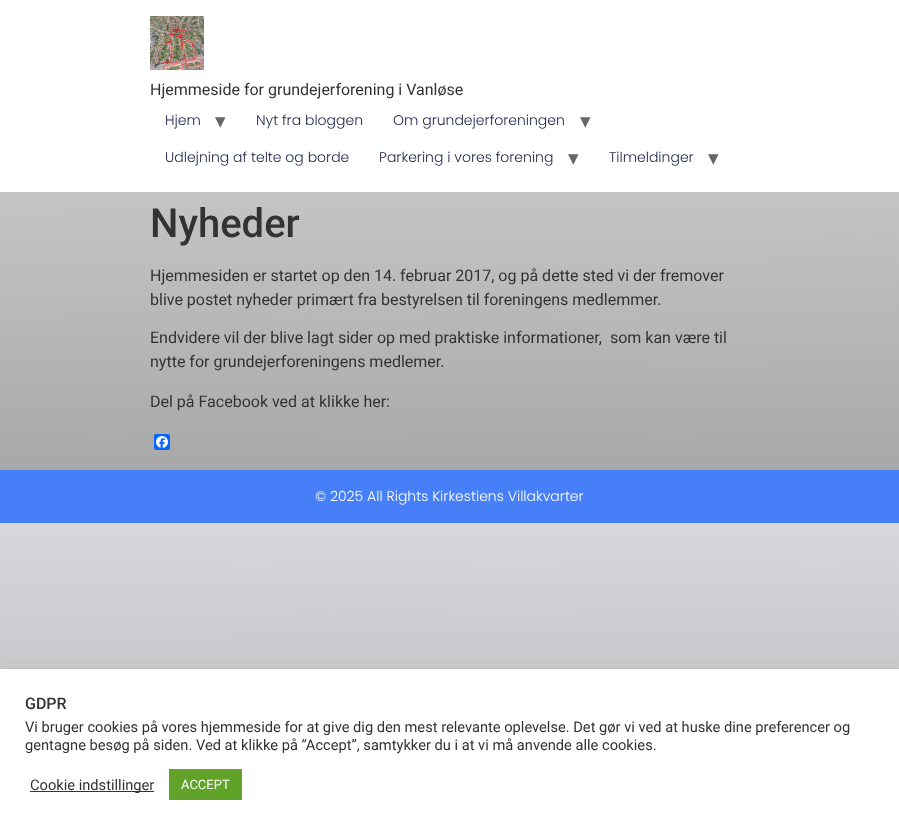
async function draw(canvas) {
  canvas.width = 899
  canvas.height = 830
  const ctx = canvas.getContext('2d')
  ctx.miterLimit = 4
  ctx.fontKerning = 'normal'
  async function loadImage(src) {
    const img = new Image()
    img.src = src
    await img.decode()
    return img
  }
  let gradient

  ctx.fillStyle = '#fff'
  ctx.fillRect(0, 0, 899, 830)
  gradient = ctx.createLinearGradient(449, 0, 450, 523)
  gradient.addColorStop(0, '#d6d8db')
  gradient.addColorStop(1, '#a3a3a3')
  ctx.fillStyle = gradient
  ctx.fillRect(0, 192, 899, 278)
  gradient = ctx.createLinearGradient(449, 523, 450, 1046)
  gradient.addColorStop(0, '#d6d8db')
  gradient.addColorStop(1, '#a3a3a3')
  ctx.fillStyle = gradient
  ctx.fillRect(0, 523, 899, 146)
  ctx.drawImage(await loadImage('image0.png'), 150, 16, 54, 54)
  ctx.font = '16px Roboto'
  ctx.fillStyle = '#333'
  ctx.fillText('Hjemmeside for grundejerforening i Vanløse', 150, 95)
  ctx.font = '300 14px Poppins'
  ctx.fillStyle = '#1c244b'
  ctx.fillText('Hjem', 165, 125)
  ctx.font = '21px DejaVu Sans'
  ctx.fillStyle = '#666'
  ctx.fillText('▾', 215, 128)
  ctx.font = '300 14px Poppins'
  ctx.fillStyle = '#1c244b'
  ctx.fillText('Nyt fra bloggen', 256, 125)
  ctx.fillText('Om grundejerforeningen', 393, 125)
  ctx.font = '21px DejaVu Sans'
  ctx.fillStyle = '#666'
  ctx.fillText('▾', 580, 128)
  ctx.font = '300 14px Poppins'
  ctx.fillStyle = '#1c244b'
  ctx.fillText('Udlejning af telte og borde', 165, 162)
  ctx.fillText('Parkering i vores forening', 379, 162)
  ctx.font = '21px DejaVu Sans'
  ctx.fillStyle = '#666'
  ctx.fillText('▾', 568, 165)
  ctx.font = '300 14px Poppins'
  ctx.fillStyle = '#1c244b'
  ctx.fillText('Tilmeldinger', 609, 162)
  ctx.font = '21px DejaVu Sans'
  ctx.fillStyle = '#666'
  ctx.fillText('▾', 708, 165)
  ctx.font = '500 40px Roboto'
  ctx.fillStyle = '#333'
  ctx.fillText('Nyheder', 150, 237)
  ctx.font = '16px Roboto'
  ctx.fillText('Hjemmesiden er startet op den 14. februar 2017, og på dette sted vi der fremover', 150, 281)
  ctx.fillText('blive postet nyheder primært fra bestyrelsen til foreningens medlemmer.', 150, 305)
  ctx.fillText('Endvidere vil der blive lagt sider op med praktiske informationer,  som kan være til', 150, 343)
  ctx.fillText('nytte for grundejerforeningens medlemer.', 150, 367)
  ctx.fillText('Del på Facebook ved at klikke her:', 150, 407)
  ctx.fillStyle = '#0866ff'
  ctx.beginPath()
  ctx.roundRect(154, 434, 16, 16, 2)
  ctx.fill()
  ctx.drawImage(await loadImage('image1.png'), 156, 436, 12, 12)
  ctx.fillStyle = '#467ff7'
  ctx.fillRect(0, 470, 899, 53)
  ctx.font = '300 14px Poppins'
  ctx.fillStyle = '#fff'
  ctx.fillText('© 2025 All Rights Kirkestiens Villakvarter', 315, 501)
  ctx.fillStyle = '#acabab4d'
  ctx.filter = 'blur(5px)'
  ctx.beginPath()
  ctx.rect(0, 668, 899, 161)
  ctx.fill()
  ctx.filter = 'none'
  ctx.fillStyle = '#fff'
  ctx.fillRect(0, 669, 899, 161)
  ctx.font = '500 16px Roboto'
  ctx.fillStyle = '#333'
  ctx.fillText('GDPR', 25, 709)
  ctx.font = '14.67px Roboto'
  ctx.fillText('Vi bruger cookies på vores hjemmeside for at give dig den mest relevante oplevelse. Det gør vi ved at huske dine preferencer og', 25, 732)
  ctx.fillText('gentagne besøg på siden. Ved at klikke på “Accept”, samtykker du i at vi må anvende alle cookies.', 25, 750)
  ctx.fillRect(30, 791, 124, 1)
  ctx.fillText('Cookie indstillinger', 30, 790)
  ctx.fillStyle = '#61a229'
  ctx.fillRect(169, 769, 73, 31)
  ctx.font = '13px Roboto'
  ctx.fillStyle = '#fff'
  ctx.fillText('ACCEPT', 181, 789)
}

draw(document.querySelector('canvas'))
